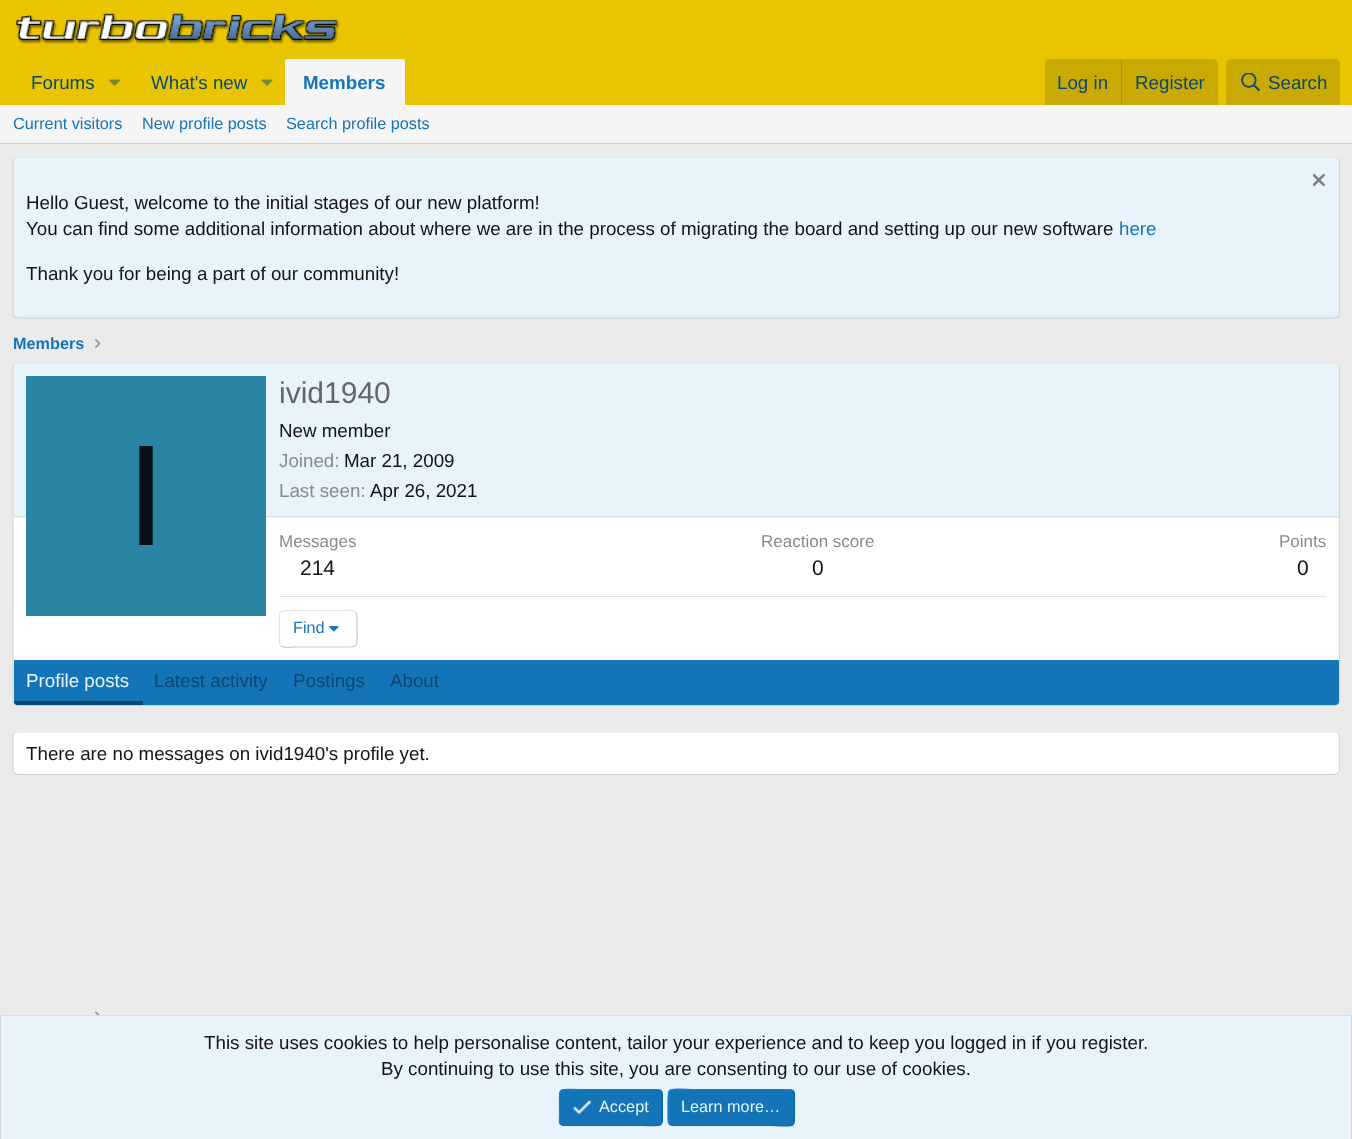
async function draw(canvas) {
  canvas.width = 1352
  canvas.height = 1139
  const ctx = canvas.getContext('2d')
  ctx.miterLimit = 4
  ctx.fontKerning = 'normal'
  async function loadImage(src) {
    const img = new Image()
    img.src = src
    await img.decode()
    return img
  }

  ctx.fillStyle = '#ebebeb'
  ctx.fillRect(0, 0, 1352, 1139)
  ctx.fillStyle = '#e8c500'
  ctx.fillRect(0, 0, 1352, 105)
  ctx.drawImage(await loadImage('image0.png'), 16, 13, 324, 31)
  ctx.font = '18.75px Liberation Sans'
  ctx.fillStyle = '#0b476f'
  ctx.fillText('Forums', 31, 89)
  ctx.drawImage(await loadImage('image1.png'), 109, 79, 11, 7)
  ctx.fillText('What\'s new', 151, 89)
  ctx.drawImage(await loadImage('image2.png'), 261, 79, 12, 7)
  ctx.fillStyle = '#f5f5f5'
  ctx.beginPath()
  ctx.roundRect(285, 59, 120, 46, [2.5, 2.5, 0, 0])
  ctx.fill()
  ctx.font = 'bold 18.75px Liberation Sans'
  ctx.fillStyle = '#1474b8'
  ctx.fillText('Members', 303, 89)
  ctx.fillStyle = '#c8aa03'
  ctx.beginPath()
  ctx.roundRect(1045, 59, 173, 46, [5, 5, 0, 0])
  ctx.fill()
  ctx.font = '18.75px Liberation Sans'
  ctx.fillStyle = '#0b476f'
  ctx.fillText('Log in', 1057, 89)
  ctx.fillStyle = '#ad9406'
  ctx.fillRect(1121, 59, 1, 46)
  ctx.fillStyle = '#0b476f'
  ctx.fillText('Register', 1135, 89)
  ctx.fillStyle = '#c8aa03'
  ctx.beginPath()
  ctx.roundRect(1226, 59, 114, 46, [5, 5, 0, 0])
  ctx.fill()
  ctx.drawImage(await loadImage('image3.png'), 1241, 73, 19, 18)
  ctx.fillStyle = '#0b476f'
  ctx.fillText('Search', 1268, 89)
  ctx.fillStyle = '#f5f5f5'
  ctx.fillRect(0, 105, 1352, 38)
  ctx.fillStyle = '#ccc'
  ctx.fillRect(0, 143, 1352, 1)
  ctx.font = '16.25px Liberation Sans'
  ctx.fillStyle = '#1474b8'
  ctx.fillText('Current visitors', 13, 129)
  ctx.fillText('New profile posts', 142, 129)
  ctx.fillText('Search profile posts', 286, 129)
  ctx.fillStyle = '#e8f4fc'
  ctx.beginPath()
  ctx.roundRect(13, 156, 1327, 163, 5)
  ctx.fill()
  ctx.beginPath()
  ctx.moveTo(14.5, 158)
  ctx.lineTo(17.5, 157)
  ctx.lineTo(1335, 157)
  ctx.lineTo(1338, 158)
  ctx.strokeStyle = '#e0e0e0'
  ctx.lineWidth = 1.2
  ctx.stroke()
  ctx.beginPath()
  ctx.moveTo(1338, 158)
  ctx.bezierCurveTo(1339, 159, 1339.5, 160, 1339.5, 161)
  ctx.lineTo(1339.5, 314)
  ctx.bezierCurveTo(1339.5, 315, 1339, 316, 1338, 317)
  ctx.strokeStyle = '#d6d6d6'
  ctx.stroke()
  ctx.beginPath()
  ctx.moveTo(1338, 317)
  ctx.lineTo(1335, 318)
  ctx.lineTo(17.5, 318)
  ctx.lineTo(14.5, 317)
  ctx.strokeStyle = '#ccc'
  ctx.stroke()
  ctx.beginPath()
  ctx.moveTo(14.5, 317)
  ctx.bezierCurveTo(13.5, 316, 13, 315, 13, 314)
  ctx.lineTo(13, 161)
  ctx.bezierCurveTo(13, 160, 13.5, 159, 14.5, 158)
  ctx.strokeStyle = '#d6d6d6'
  ctx.stroke()
  ctx.drawImage(await loadImage('image4.png'), 1313, 173, 12, 14)
  ctx.font = '18.75px Liberation Sans'
  ctx.fillStyle = '#141414'
  ctx.fillText('Hello Guest, welcome to the initial stages of our new platform!', 26, 209)
  ctx.fillText('You can find some additional information about where we are in the process of migrating the board and setting up our new software', 26, 235)
  ctx.fillStyle = '#1474b8'
  ctx.fillText('here', 1119, 235)
  ctx.fillStyle = '#141414'
  ctx.fillText('Thank you for being a part of our community!', 26, 280)
  ctx.font = 'bold 16.25px Liberation Sans'
  ctx.fillStyle = '#1474b8'
  ctx.fillText('Members', 13, 349)
  ctx.drawImage(await loadImage('image5.png'), 95, 339, 5, 9)
  ctx.fillStyle = '#fff'
  ctx.beginPath()
  ctx.roundRect(13, 363, 1327, 343, 5)
  ctx.fill()
  ctx.beginPath()
  ctx.moveTo(14.5, 364.5)
  ctx.lineTo(17.5, 363)
  ctx.lineTo(1335, 363)
  ctx.lineTo(1338, 364.5)
  ctx.strokeStyle = '#e0e0e0'
  ctx.stroke()
  ctx.beginPath()
  ctx.moveTo(1338, 364.5)
  ctx.bezierCurveTo(1339, 365, 1339.5, 366.5, 1339.5, 367.5)
  ctx.lineTo(1339.5, 701)
  ctx.bezierCurveTo(1339.5, 702.5, 1339, 703.5, 1338, 704.5)
  ctx.strokeStyle = '#d6d6d6'
  ctx.stroke()
  ctx.beginPath()
  ctx.moveTo(1338, 704.5)
  ctx.lineTo(1335, 705.5)
  ctx.lineTo(17.5, 705.5)
  ctx.lineTo(14.5, 704.5)
  ctx.strokeStyle = '#ccc'
  ctx.stroke()
  ctx.beginPath()
  ctx.moveTo(14.5, 704.5)
  ctx.bezierCurveTo(13.5, 703.5, 13, 702.5, 13, 701)
  ctx.lineTo(13, 367.5)
  ctx.bezierCurveTo(13, 366.5, 13.5, 365, 14.5, 364.5)
  ctx.strokeStyle = '#d6d6d6'
  ctx.stroke()
  ctx.fillStyle = '#e8f4fc'
  ctx.beginPath()
  ctx.roundRect(14, 364, 1325, 154, [4, 4, 0, 0])
  ctx.fill()
  ctx.fillStyle = '#e0e0e0'
  ctx.fillRect(14, 516, 1325, 1)
  ctx.fillStyle = '#2985a3'
  ctx.fillRect(26, 376, 240, 240)
  ctx.font = '144px Liberation Sans'
  ctx.fillStyle = '#051114'
  ctx.fillText('I', 126, 545)
  ctx.font = '30px Liberation Sans'
  ctx.fillStyle = '#666'
  ctx.fillText('ivid1940', 279, 403)
  ctx.font = '18.75px Liberation Sans'
  ctx.fillStyle = '#141414'
  ctx.fillText('New member', 279, 437)
  ctx.fillStyle = '#8a8a8a'
  ctx.fillText('Joined:', 279, 467)
  ctx.fillStyle = '#141414'
  ctx.fillText('Mar 21, 2009', 344, 467)
  ctx.fillStyle = '#8a8a8a'
  ctx.fillText('Last seen:', 279, 497)
  ctx.fillStyle = '#141414'
  ctx.fillText('Apr 26, 2021', 370, 497)
  ctx.font = '17px Liberation Sans'
  ctx.fillStyle = '#8a8a8a'
  ctx.fillText('Messages', 279, 547)
  ctx.font = '21px Liberation Sans'
  ctx.fillStyle = '#141414'
  ctx.fillText('214', 300, 575)
  ctx.font = '17px Liberation Sans'
  ctx.fillStyle = '#8a8a8a'
  ctx.fillText('Reaction score', 761, 547)
  ctx.font = '21px Liberation Sans'
  ctx.fillStyle = '#141414'
  ctx.fillText('0', 812, 575)
  ctx.font = '17px Liberation Sans'
  ctx.fillStyle = '#8a8a8a'
  ctx.fillText('Points', 1279, 547)
  ctx.font = '21px Liberation Sans'
  ctx.fillStyle = '#141414'
  ctx.fillText('0', 1297, 575)
  ctx.fillStyle = '#e0e0e0'
  ctx.fillRect(279, 596, 1047, 1)
  ctx.beginPath()
  ctx.moveTo(355.5, 612)
  ctx.bezierCurveTo(357.5, 614, 357, 617, 357, 619.5)
  ctx.lineTo(357, 629)
  ctx.bezierCurveTo(357, 648, 360, 647, 341, 647)
  ctx.lineTo(295, 647)
  ctx.bezierCurveTo(294.5, 647, 284, 648.5, 280.5, 645.5)
  ctx.strokeStyle = '#c9c9c9'
  ctx.stroke()
  ctx.beginPath()
  ctx.moveTo(280.5, 645.5)
  ctx.bezierCurveTo(278.5, 643.5, 279.5, 640.5, 279.5, 638)
  ctx.lineTo(279.5, 629)
  ctx.bezierCurveTo(279.5, 609.5, 276, 610.5, 295, 610.5)
  ctx.lineTo(341, 610.5)
  ctx.bezierCurveTo(341.5, 610.5, 352.5, 609, 355.5, 612)
  ctx.strokeStyle = '#e3e3e3'
  ctx.stroke()
  ctx.font = '16.25px Liberation Sans'
  ctx.fillStyle = '#1474b8'
  ctx.fillText('Find', 293, 633)
  ctx.drawImage(await loadImage('image6.png'), 329, 626, 10, 6)
  ctx.beginPath()
  ctx.roundRect(14, 660, 1325, 45, [0, 0, 4, 4])
  ctx.fill()
  ctx.fillStyle = '#0b476f'
  ctx.beginPath()
  ctx.roundRect(14, 701, 129, 4, [0, 0, 0, 4])
  ctx.fill()
  ctx.font = '18.75px Liberation Sans'
  ctx.fillStyle = '#e8f4fc'
  ctx.fillText('Profile posts', 26, 687)
  ctx.fillStyle = '#0b476f'
  ctx.fillText('Latest activity', 154, 687)
  ctx.fillText('Postings', 293, 687)
  ctx.fillText('About', 390, 687)
  ctx.fillStyle = '#fff'
  ctx.beginPath()
  ctx.roundRect(13, 731, 1327, 44, 5)
  ctx.fill()
  ctx.beginPath()
  ctx.moveTo(14.5, 733)
  ctx.lineTo(17.5, 732)
  ctx.lineTo(1335, 732)
  ctx.lineTo(1338, 733)
  ctx.strokeStyle = '#e0e0e0'
  ctx.stroke()
  ctx.beginPath()
  ctx.moveTo(1338, 733)
  ctx.bezierCurveTo(1339, 734, 1339.5, 735, 1339.5, 736)
  ctx.lineTo(1339.5, 770)
  ctx.bezierCurveTo(1339.5, 771, 1339, 772.5, 1338, 773)
  ctx.strokeStyle = '#d6d6d6'
  ctx.stroke()
  ctx.beginPath()
  ctx.moveTo(1338, 773)
  ctx.lineTo(1335, 774.5)
  ctx.lineTo(17.5, 774.5)
  ctx.lineTo(14.5, 773)
  ctx.strokeStyle = '#ccc'
  ctx.stroke()
  ctx.beginPath()
  ctx.moveTo(14.5, 773)
  ctx.bezierCurveTo(13.5, 772.5, 13, 771, 13, 770)
  ctx.lineTo(13, 736)
  ctx.bezierCurveTo(13, 735, 13.5, 734, 14.5, 733)
  ctx.strokeStyle = '#d6d6d6'
  ctx.stroke()
  ctx.fillStyle = '#141414'
  ctx.fillText('There are no messages on ivid1940\'s profile yet.', 26, 760)
  ctx.drawImage(await loadImage('image7.png'), 95, 1011, 5, 4)
  ctx.fillStyle = '#e8f4fc'
  ctx.fillRect(1, 1016, 1350, 123)
  ctx.fillStyle = '#e0e0e0'
  ctx.fillRect(0, 1015, 1352, 1)
  ctx.fillStyle = '#d6d6d6'
  ctx.fillRect(1351, 1015, 1, 124)
  ctx.fillRect(0, 1015, 1, 124)
  ctx.fillStyle = '#141414'
  ctx.fillText('This site uses cookies to help personalise content, tailor your experience and to keep you logged in if you register.', 204, 1049)
  ctx.fillText('By continuing to use this site, you are consenting to our use of cookies.', 381, 1075)
  ctx.fillStyle = '#1474b8'
  ctx.beginPath()
  ctx.roundRect(559, 1089, 104, 37, 5)
  ctx.fill()
  ctx.beginPath()
  ctx.moveTo(660.5, 1090.5)
  ctx.bezierCurveTo(662.5, 1092.5, 662, 1096, 662, 1098.5)
  ctx.lineTo(662, 1107.5)
  ctx.bezierCurveTo(662, 1129, 664.5, 1125.5, 642, 1125.5)
  ctx.lineTo(564, 1125.5)
  ctx.lineTo(560.5, 1124.5)
  ctx.strokeStyle = '#1265a1'
  ctx.stroke()
  ctx.beginPath()
  ctx.moveTo(560.5, 1124.5)
  ctx.bezierCurveTo(558.5, 1122.5, 559.5, 1119, 559.5, 1116.5)
  ctx.lineTo(559.5, 1107.5)
  ctx.bezierCurveTo(559.5, 1086, 556.5, 1089.5, 579.5, 1089.5)
  ctx.lineTo(657.5, 1089.5)
  ctx.lineTo(660.5, 1090.5)
  ctx.strokeStyle = '#1782cf'
  ctx.stroke()
  ctx.drawImage(await loadImage('image8.png'), 573, 1100, 19, 15)
  ctx.font = '16.25px Liberation Sans'
  ctx.fillStyle = '#e8f4fc'
  ctx.fillText('Accept', 599, 1112)
  ctx.fillStyle = '#1474b8'
  ctx.beginPath()
  ctx.roundRect(668, 1089, 127, 37, 5)
  ctx.fill()
  ctx.beginPath()
  ctx.moveTo(793, 1090.5)
  ctx.bezierCurveTo(795, 1092.5, 794.5, 1096, 794.5, 1098.5)
  ctx.lineTo(794.5, 1107.5)
  ctx.bezierCurveTo(794.5, 1130.5, 796.5, 1125.5, 770.5, 1125.5)
  ctx.lineTo(672.5, 1125.5)
  ctx.lineTo(669.5, 1124.5)
  ctx.strokeStyle = '#1265a1'
  ctx.stroke()
  ctx.beginPath()
  ctx.moveTo(669.5, 1124.5)
  ctx.bezierCurveTo(667.5, 1122.5, 668, 1119, 668, 1116.5)
  ctx.lineTo(668, 1107.5)
  ctx.bezierCurveTo(668, 1084.5, 666, 1089.5, 692, 1089.5)
  ctx.lineTo(790, 1089.5)
  ctx.lineTo(793, 1090.5)
  ctx.strokeStyle = '#1782cf'
  ctx.stroke()
  ctx.fillStyle = '#e8f4fc'
  ctx.fillText('Learn more…', 681, 1112)
}

draw(document.querySelector('canvas'))
